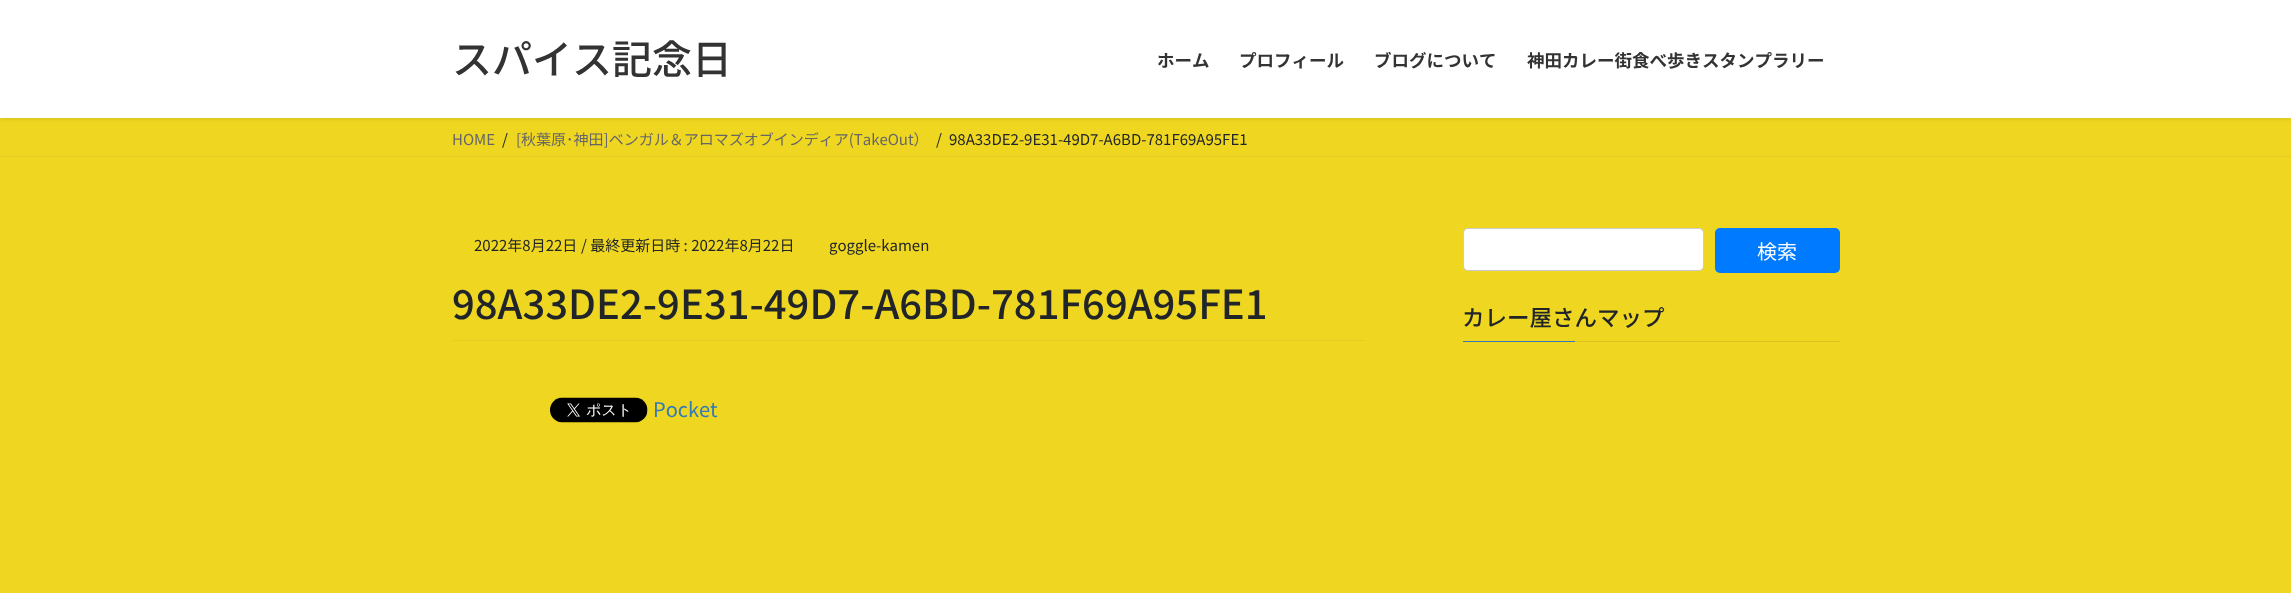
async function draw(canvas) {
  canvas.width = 2291
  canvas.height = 593
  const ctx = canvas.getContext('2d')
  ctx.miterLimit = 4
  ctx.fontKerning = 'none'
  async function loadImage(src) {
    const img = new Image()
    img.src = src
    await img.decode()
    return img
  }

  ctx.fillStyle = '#efd721'
  ctx.fillRect(0, 0, 2291, 593)
  ctx.fillStyle = '#0000001a'
  ctx.filter = 'blur(2px)'
  ctx.beginPath()
  ctx.rect(0, 1, 2291, 118)
  ctx.fill()
  ctx.filter = 'none'
  ctx.fillStyle = '#fff'
  ctx.fillRect(0, 0, 2291, 118)
  ctx.font = '500 40px Noto Sans JP'
  ctx.fillStyle = '#333'
  ctx.fillText('スパイス記念日', 452, 74)
  ctx.font = 'bold 17.5px Noto Sans JP'
  ctx.fillText('ホーム', 1157, 67)
  ctx.fillText('プロフィール', 1239, 67)
  ctx.fillText('ブログについて', 1374, 67)
  ctx.fillText('神田カレー街食べ歩きスタンプラリー', 1527, 67)
  ctx.fillStyle = '#e3cc1f'
  ctx.fillRect(0, 156, 2291, 1)
  ctx.font = '15px Noto Sans JP'
  ctx.fillStyle = '#666'
  ctx.fillText('HOME', 452, 145)
  ctx.fillStyle = '#212529'
  ctx.fillText('/', 502, 145)
  ctx.fillStyle = '#666'
  ctx.fillText('[秋葉原･神田]ベンガル＆アロマズオブインディア(TakeOut）', 516, 145)
  ctx.fillStyle = '#212529'
  ctx.fillText('/', 936, 145)
  ctx.fillText('98A33DE2-9E31-49D7-A6BD-781F69A95FE1', 949, 145)
  ctx.fillStyle = '#e3cc1f'
  ctx.fillRect(453, 340, 912, 1)
  ctx.fillStyle = '#212529'
  ctx.fillText('2022年8月22日', 474, 251)
  ctx.fillText('/ 最終更新日時 : 2022年8月22日', 581, 251)
  ctx.fillText('goggle-kamen', 829, 251)
  ctx.font = '500 40px Noto Sans JP'
  ctx.fillText('98A33DE2-9E31-49D7-A6BD-781F69A95FE1', 452, 319)
  ctx.drawImage(await loadImage('image0.png'), 550, 397, 98, 26)
  ctx.font = '20px Noto Sans JP'
  ctx.fillStyle = '#337ab7'
  ctx.fillText('Pocket', 653, 417)
  ctx.fillStyle = '#fff'
  ctx.beginPath()
  ctx.roundRect(1463.5, 228.5, 240, 42, 4.5)
  ctx.fill()
  ctx.strokeStyle = '#ccc'
  ctx.stroke()
  ctx.fillStyle = '#007bff'
  ctx.beginPath()
  ctx.roundRect(1715, 228, 125, 45, 5)
  ctx.fill()
  ctx.fillStyle = '#fff'
  ctx.fillText('検索', 1757, 259)
  ctx.fillStyle = '#d7c21e'
  ctx.fillRect(1575, 341, 265, 1)
  ctx.font = '500 22.5px Noto Sans JP'
  ctx.fillStyle = '#212529'
  ctx.fillText('カレー屋さんマップ', 1462, 326)
  ctx.fillStyle = '#337ab7'
  ctx.fillRect(1463, 341, 112, 1)
}

draw(document.querySelector('canvas'))
